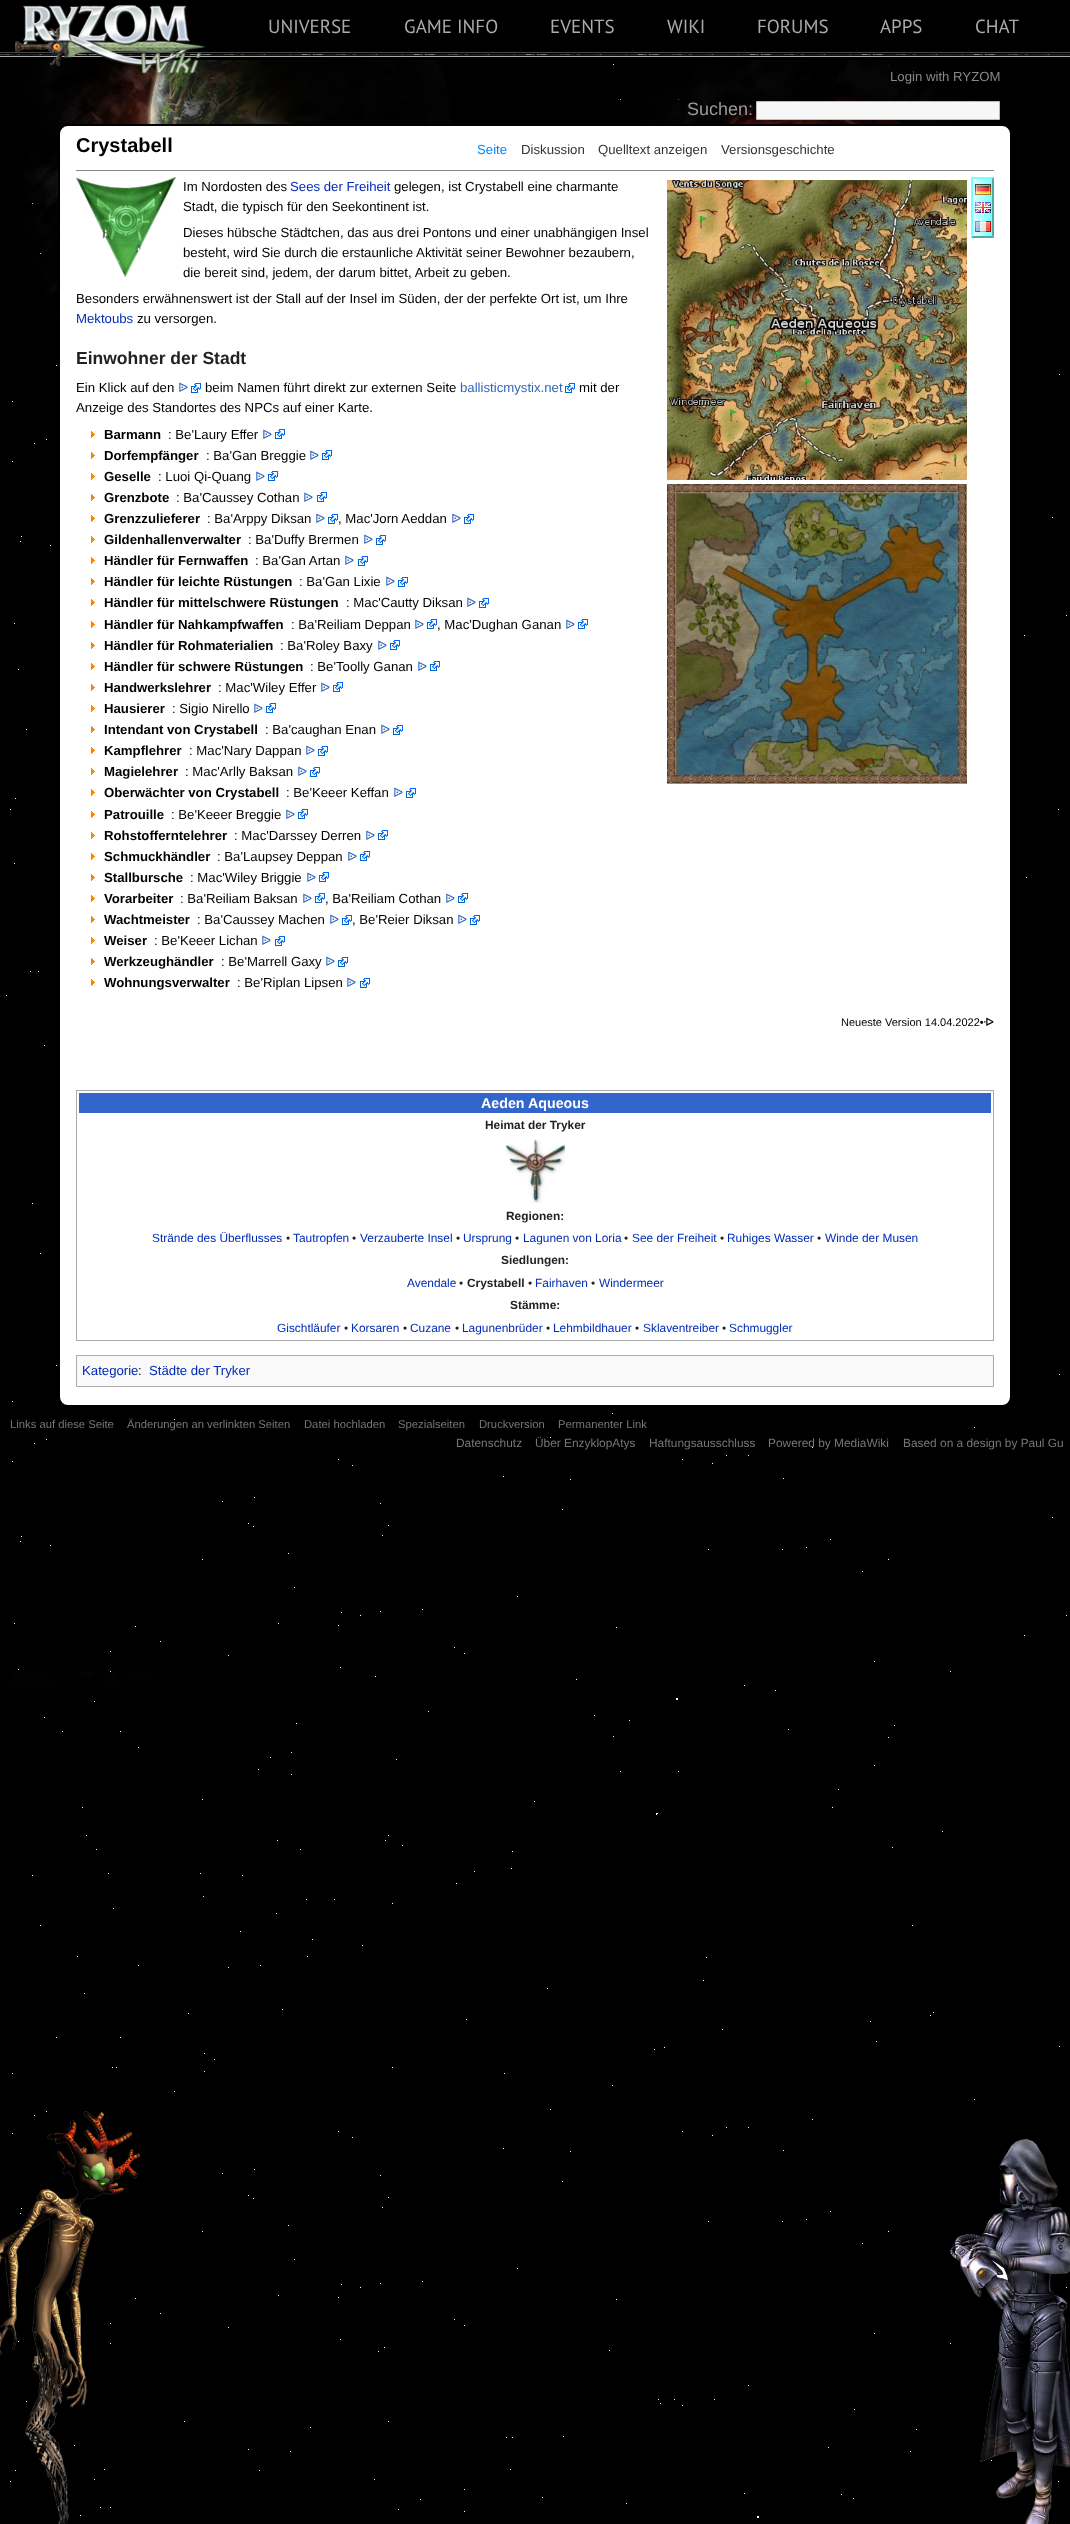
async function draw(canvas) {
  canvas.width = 1070
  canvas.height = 2524
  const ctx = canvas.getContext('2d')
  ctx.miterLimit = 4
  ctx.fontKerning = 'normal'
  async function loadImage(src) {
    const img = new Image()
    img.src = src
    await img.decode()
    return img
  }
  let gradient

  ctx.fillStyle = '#000'
  ctx.fillRect(0, 0, 1070, 2524)
  ctx.drawImage(await loadImage('image0.png'), 6, 1462, 1061, 1056)
  ctx.drawImage(await loadImage('image1.png'), 6, 60, 1061, 1402)
  ctx.drawImage(await loadImage('image3.png'), 0, 52, 1070, 5)
  ctx.drawImage(await loadImage('image4.png'), 24, 60, 427, 282)
  ctx.drawImage(await loadImage('image2.png'), 15, 5, 191, 69)
  ctx.font = '19px PT Sans'
  ctx.fillStyle = '#aaa'
  ctx.fillText('UNIVERSE', 268, 33)
  ctx.fillText('GAME INFO', 404, 33)
  ctx.fillText('EVENTS', 550, 33)
  ctx.fillText('WIKI', 667, 33)
  ctx.fillText('FORUMS', 757, 33)
  ctx.fillText('APPS', 880, 33)
  ctx.fillText('CHAT', 975, 33)
  ctx.drawImage(await loadImage('image5.png'), 620, 60, 364, 64)
  ctx.font = '13.2px Liberation Sans'
  ctx.fillStyle = '#888'
  ctx.fillText('Login with RYZOM', 890, 81)
  ctx.font = '18px Liberation Sans'
  ctx.fillStyle = '#999'
  ctx.fillText('Suchen:', 687, 115)
  ctx.fillStyle = '#f7f7f7'
  ctx.beginPath()
  ctx.rect(756.5, 101.5, 243, 18)
  ctx.fill()
  ctx.strokeStyle = '#bbb'
  ctx.stroke()
  ctx.fillStyle = '#fff'
  ctx.beginPath()
  ctx.roundRect(59, 125, 952, 1281, 9)
  ctx.fill()
  ctx.strokeStyle = '#000'
  ctx.lineWidth = 2
  ctx.stroke()
  ctx.font = 'bold 20px Liberation Sans'
  ctx.fillStyle = '#000'
  ctx.fillText('Crystabell', 76, 152)
  ctx.fillStyle = '#888'
  ctx.fillRect(76, 170, 918, 1)
  ctx.drawImage(await loadImage('image6.png'), 76, 177, 100, 100)
  ctx.font = '13.2px Liberation Sans'
  ctx.fillStyle = '#000'
  ctx.fillText('Im Nordosten des', 183, 191)
  ctx.fillStyle = '#002bb8'
  ctx.fillText('Sees der Freiheit', 290, 191)
  ctx.fillStyle = '#000'
  ctx.fillText('gelegen, ist Crystabell eine charmante', 394, 191)
  ctx.fillText('Stadt, die typisch für den Seekontinent ist.', 183, 211)
  ctx.drawImage(await loadImage('image7.png'), 667, 180, 300, 300)
  ctx.drawImage(await loadImage('image8.png'), 667, 484, 300, 300)
  gradient = ctx.createLinearGradient(973, 208, 992, 208)
  gradient.addColorStop(0, '#dff')
  gradient.addColorStop(1, '#7ff')
  ctx.fillStyle = gradient
  ctx.fillRect(973, 179, 19, 57)
  ctx.fillStyle = '#7ff'
  ctx.beginPath()
  ctx.moveTo(971, 177)
  ctx.lineTo(994, 177)
  ctx.lineTo(992, 179)
  ctx.lineTo(973, 179)
  ctx.closePath()
  ctx.fill()
  ctx.fillStyle = '#4faaaa'
  ctx.beginPath()
  ctx.moveTo(994, 177)
  ctx.lineTo(994, 238)
  ctx.lineTo(992, 236)
  ctx.lineTo(992, 179)
  ctx.closePath()
  ctx.fill()
  ctx.beginPath()
  ctx.moveTo(994, 238)
  ctx.lineTo(971, 238)
  ctx.lineTo(973, 236)
  ctx.lineTo(992, 236)
  ctx.closePath()
  ctx.fill()
  ctx.fillStyle = '#7ff'
  ctx.beginPath()
  ctx.moveTo(971, 238)
  ctx.lineTo(971, 177)
  ctx.lineTo(973, 179)
  ctx.lineTo(973, 236)
  ctx.closePath()
  ctx.fill()
  ctx.drawImage(await loadImage('image9.png'), 975, 184, 16, 11)
  ctx.drawImage(await loadImage('image10.png'), 975, 202, 16, 11)
  ctx.drawImage(await loadImage('image11.png'), 975, 221, 16, 11)
  ctx.fillStyle = '#000'
  ctx.fillText('Dieses hübsche Städtchen, das aus drei Pontons und einer unabhängigen Insel', 183, 237)
  ctx.fillText('besteht, wird Sie durch die erstaunliche Aktivität seiner Bewohner bezaubern,', 183, 257)
  ctx.fillText('die bereit sind, jedem, der darum bittet, Arbeit zu geben.', 183, 277)
  ctx.fillText('Besonders erwähnenswert ist der Stall auf der Insel im Süden, der der perfekte Ort ist, um Ihre', 76, 303)
  ctx.fillStyle = '#002bb8'
  ctx.fillText('Mektoubs', 76, 323)
  ctx.fillStyle = '#000'
  ctx.fillText('zu versorgen.', 137, 323)
  ctx.font = 'bold 17.5px Liberation Sans'
  ctx.fillStyle = '#222'
  ctx.fillText('Einwohner der Stadt', 76, 364)
  ctx.font = '13.2px Liberation Sans'
  ctx.fillStyle = '#000'
  ctx.fillText('Ein Klick auf den', 76, 392)
  ctx.font = '13.2px DejaVu Sans'
  ctx.fillStyle = '#36b'
  ctx.fillText('ᐉ', 178, 392)
  ctx.drawImage(await loadImage('image12.png'), 191, 383, 10, 10)
  ctx.font = '13.2px Liberation Sans'
  ctx.fillStyle = '#000'
  ctx.fillText('beim Namen führt direkt zur externen Seite', 205, 392)
  ctx.fillStyle = '#36b'
  ctx.fillText('ballisticmystix.net', 460, 392)
  ctx.drawImage(await loadImage('image12.png'), 565, 383, 10, 10)
  ctx.fillStyle = '#000'
  ctx.fillText('mit der', 579, 392)
  ctx.fillText('Anzeige des Standortes des NPCs auf einer Karte.', 76, 412)
  ctx.drawImage(await loadImage('image13.png'), 91, 431, 4, 7)
  ctx.font = 'bold 13.2px Liberation Sans'
  ctx.fillText('Barmann', 104, 439)
  ctx.font = '13.2px Liberation Sans'
  ctx.fillText(': Be\'Laury Effer', 168, 439)
  ctx.font = '13.2px DejaVu Sans'
  ctx.fillStyle = '#36b'
  ctx.fillText('ᐉ', 262, 439)
  ctx.drawImage(await loadImage('image12.png'), 275, 429, 10, 10)
  ctx.drawImage(await loadImage('image13.png'), 91, 452, 4, 7)
  ctx.font = 'bold 13.2px Liberation Sans'
  ctx.fillStyle = '#000'
  ctx.fillText('Dorfempfänger', 104, 460)
  ctx.font = '13.2px Liberation Sans'
  ctx.fillText(': Ba\'Gan Breggie', 206, 460)
  ctx.font = '13.2px DejaVu Sans'
  ctx.fillStyle = '#36b'
  ctx.fillText('ᐉ', 309, 460)
  ctx.drawImage(await loadImage('image12.png'), 322, 450, 10, 10)
  ctx.drawImage(await loadImage('image13.png'), 91, 473, 4, 7)
  ctx.font = 'bold 13.2px Liberation Sans'
  ctx.fillStyle = '#000'
  ctx.fillText('Geselle', 104, 481)
  ctx.font = '13.2px Liberation Sans'
  ctx.fillText(': Luoi Qi-Quang', 158, 481)
  ctx.font = '13.2px DejaVu Sans'
  ctx.fillStyle = '#36b'
  ctx.fillText('ᐉ', 255, 481)
  ctx.drawImage(await loadImage('image12.png'), 268, 471, 10, 10)
  ctx.drawImage(await loadImage('image13.png'), 91, 494, 4, 7)
  ctx.font = 'bold 13.2px Liberation Sans'
  ctx.fillStyle = '#000'
  ctx.fillText('Grenzbote', 104, 502)
  ctx.font = '13.2px Liberation Sans'
  ctx.fillText(': Ba\'Caussey Cothan', 176, 502)
  ctx.font = '13.2px DejaVu Sans'
  ctx.fillStyle = '#36b'
  ctx.fillText('ᐉ', 303, 502)
  ctx.drawImage(await loadImage('image12.png'), 317, 492, 10, 10)
  ctx.drawImage(await loadImage('image13.png'), 91, 515, 4, 7)
  ctx.font = 'bold 13.2px Liberation Sans'
  ctx.fillStyle = '#000'
  ctx.fillText('Grenzzulieferer', 104, 523)
  ctx.font = '13.2px Liberation Sans'
  ctx.fillText(': Ba\'Arppy Diksan', 207, 523)
  ctx.font = '13.2px DejaVu Sans'
  ctx.fillStyle = '#36b'
  ctx.fillText('ᐉ', 315, 523)
  ctx.drawImage(await loadImage('image12.png'), 328, 514, 10, 10)
  ctx.font = '13.2px Liberation Sans'
  ctx.fillStyle = '#000'
  ctx.fillText(', Mac\'Jorn Aeddan', 338, 523)
  ctx.font = '13.2px DejaVu Sans'
  ctx.fillStyle = '#36b'
  ctx.fillText('ᐉ', 451, 523)
  ctx.drawImage(await loadImage('image12.png'), 464, 514, 10, 10)
  ctx.drawImage(await loadImage('image13.png'), 91, 536, 4, 7)
  ctx.font = 'bold 13.2px Liberation Sans'
  ctx.fillStyle = '#000'
  ctx.fillText('Gildenhallenverwalter', 104, 544)
  ctx.font = '13.2px Liberation Sans'
  ctx.fillText(': Ba\'Duffy Brermen', 248, 544)
  ctx.font = '13.2px DejaVu Sans'
  ctx.fillStyle = '#36b'
  ctx.fillText('ᐉ', 363, 544)
  ctx.drawImage(await loadImage('image12.png'), 376, 535, 10, 10)
  ctx.drawImage(await loadImage('image13.png'), 91, 557, 4, 7)
  ctx.font = 'bold 13.2px Liberation Sans'
  ctx.fillStyle = '#000'
  ctx.fillText('Händler für Fernwaffen', 104, 565)
  ctx.font = '13.2px Liberation Sans'
  ctx.fillText(': Ba\'Gan Artan', 255, 565)
  ctx.font = '13.2px DejaVu Sans'
  ctx.fillStyle = '#36b'
  ctx.fillText('ᐉ', 344, 565)
  ctx.drawImage(await loadImage('image12.png'), 358, 556, 10, 10)
  ctx.drawImage(await loadImage('image13.png'), 91, 578, 4, 7)
  ctx.font = 'bold 13.2px Liberation Sans'
  ctx.fillStyle = '#000'
  ctx.fillText('Händler für leichte Rüstungen', 104, 586)
  ctx.font = '13.2px Liberation Sans'
  ctx.fillText(': Ba\'Gan Lixie', 299, 586)
  ctx.font = '13.2px DejaVu Sans'
  ctx.fillStyle = '#36b'
  ctx.fillText('ᐉ', 385, 586)
  ctx.drawImage(await loadImage('image12.png'), 398, 577, 10, 10)
  ctx.drawImage(await loadImage('image13.png'), 91, 599, 4, 7)
  ctx.font = 'bold 13.2px Liberation Sans'
  ctx.fillStyle = '#000'
  ctx.fillText('Händler für mittelschwere Rüstungen', 104, 607)
  ctx.font = '13.2px Liberation Sans'
  ctx.fillText(': Mac\'Cautty Diksan', 346, 607)
  ctx.font = '13.2px DejaVu Sans'
  ctx.fillStyle = '#36b'
  ctx.fillText('ᐉ', 466, 607)
  ctx.drawImage(await loadImage('image12.png'), 479, 598, 10, 10)
  ctx.drawImage(await loadImage('image13.png'), 91, 621, 4, 7)
  ctx.font = 'bold 13.2px Liberation Sans'
  ctx.fillStyle = '#000'
  ctx.fillText('Händler für Nahkampfwaffen', 104, 629)
  ctx.font = '13.2px Liberation Sans'
  ctx.fillText(': Ba\'Reiliam Deppan', 291, 629)
  ctx.font = '13.2px DejaVu Sans'
  ctx.fillStyle = '#36b'
  ctx.fillText('ᐉ', 414, 629)
  ctx.drawImage(await loadImage('image12.png'), 427, 619, 10, 10)
  ctx.font = '13.2px Liberation Sans'
  ctx.fillStyle = '#000'
  ctx.fillText(', Mac\'Dughan Ganan', 437, 629)
  ctx.font = '13.2px DejaVu Sans'
  ctx.fillStyle = '#36b'
  ctx.fillText('ᐉ', 565, 629)
  ctx.drawImage(await loadImage('image12.png'), 578, 619, 10, 10)
  ctx.drawImage(await loadImage('image13.png'), 91, 642, 4, 7)
  ctx.font = 'bold 13.2px Liberation Sans'
  ctx.fillStyle = '#000'
  ctx.fillText('Händler für Rohmaterialien', 104, 650)
  ctx.font = '13.2px Liberation Sans'
  ctx.fillText(': Ba\'Roley Baxy', 280, 650)
  ctx.font = '13.2px DejaVu Sans'
  ctx.fillStyle = '#36b'
  ctx.fillText('ᐉ', 377, 650)
  ctx.drawImage(await loadImage('image12.png'), 390, 640, 10, 10)
  ctx.drawImage(await loadImage('image13.png'), 91, 663, 4, 7)
  ctx.font = 'bold 13.2px Liberation Sans'
  ctx.fillStyle = '#000'
  ctx.fillText('Händler für schwere Rüstungen', 104, 671)
  ctx.font = '13.2px Liberation Sans'
  ctx.fillText(': Be\'Toolly Ganan', 310, 671)
  ctx.font = '13.2px DejaVu Sans'
  ctx.fillStyle = '#36b'
  ctx.fillText('ᐉ', 417, 671)
  ctx.drawImage(await loadImage('image12.png'), 430, 661, 10, 10)
  ctx.drawImage(await loadImage('image13.png'), 91, 684, 4, 7)
  ctx.font = 'bold 13.2px Liberation Sans'
  ctx.fillStyle = '#000'
  ctx.fillText('Handwerkslehrer', 104, 692)
  ctx.font = '13.2px Liberation Sans'
  ctx.fillText(': Mac\'Wiley Effer', 218, 692)
  ctx.font = '13.2px DejaVu Sans'
  ctx.fillStyle = '#36b'
  ctx.fillText('ᐉ', 320, 692)
  ctx.drawImage(await loadImage('image12.png'), 333, 682, 10, 10)
  ctx.drawImage(await loadImage('image13.png'), 91, 705, 4, 7)
  ctx.font = 'bold 13.2px Liberation Sans'
  ctx.fillStyle = '#000'
  ctx.fillText('Hausierer', 104, 713)
  ctx.font = '13.2px Liberation Sans'
  ctx.fillText(': Sigio Nirello', 172, 713)
  ctx.font = '13.2px DejaVu Sans'
  ctx.fillStyle = '#36b'
  ctx.fillText('ᐉ', 253, 713)
  ctx.drawImage(await loadImage('image12.png'), 266, 703, 10, 10)
  ctx.drawImage(await loadImage('image13.png'), 91, 726, 4, 7)
  ctx.font = 'bold 13.2px Liberation Sans'
  ctx.fillStyle = '#000'
  ctx.fillText('Intendant von Crystabell', 104, 734)
  ctx.font = '13.2px Liberation Sans'
  ctx.fillText(': Ba\'caughan Enan', 265, 734)
  ctx.font = '13.2px DejaVu Sans'
  ctx.fillStyle = '#36b'
  ctx.fillText('ᐉ', 380, 734)
  ctx.drawImage(await loadImage('image12.png'), 393, 725, 10, 10)
  ctx.drawImage(await loadImage('image13.png'), 91, 747, 4, 7)
  ctx.font = 'bold 13.2px Liberation Sans'
  ctx.fillStyle = '#000'
  ctx.fillText('Kampflehrer', 104, 755)
  ctx.font = '13.2px Liberation Sans'
  ctx.fillText(': Mac\'Nary Dappan', 189, 755)
  ctx.font = '13.2px DejaVu Sans'
  ctx.fillStyle = '#36b'
  ctx.fillText('ᐉ', 305, 755)
  ctx.drawImage(await loadImage('image12.png'), 318, 746, 10, 10)
  ctx.drawImage(await loadImage('image13.png'), 91, 768, 4, 7)
  ctx.font = 'bold 13.2px Liberation Sans'
  ctx.fillStyle = '#000'
  ctx.fillText('Magielehrer', 104, 776)
  ctx.font = '13.2px Liberation Sans'
  ctx.fillText(': Mac\'Arlly Baksan', 185, 776)
  ctx.font = '13.2px DejaVu Sans'
  ctx.fillStyle = '#36b'
  ctx.fillText('ᐉ', 297, 776)
  ctx.drawImage(await loadImage('image12.png'), 310, 767, 10, 10)
  ctx.drawImage(await loadImage('image13.png'), 91, 789, 4, 7)
  ctx.font = 'bold 13.2px Liberation Sans'
  ctx.fillStyle = '#000'
  ctx.fillText('Oberwächter von Crystabell', 104, 797)
  ctx.font = '13.2px Liberation Sans'
  ctx.fillText(': Be\'Keeer Keffan', 286, 797)
  ctx.font = '13.2px DejaVu Sans'
  ctx.fillStyle = '#36b'
  ctx.fillText('ᐉ', 393, 797)
  ctx.drawImage(await loadImage('image12.png'), 406, 788, 10, 10)
  ctx.drawImage(await loadImage('image13.png'), 91, 811, 4, 7)
  ctx.font = 'bold 13.2px Liberation Sans'
  ctx.fillStyle = '#000'
  ctx.fillText('Patrouille', 104, 819)
  ctx.font = '13.2px Liberation Sans'
  ctx.fillText(': Be\'Keeer Breggie', 171, 819)
  ctx.font = '13.2px DejaVu Sans'
  ctx.fillStyle = '#36b'
  ctx.fillText('ᐉ', 285, 819)
  ctx.drawImage(await loadImage('image12.png'), 298, 809, 10, 10)
  ctx.drawImage(await loadImage('image13.png'), 91, 832, 4, 7)
  ctx.font = 'bold 13.2px Liberation Sans'
  ctx.fillStyle = '#000'
  ctx.fillText('Rohstofferntelehrer', 104, 840)
  ctx.font = '13.2px Liberation Sans'
  ctx.fillText(': Mac\'Darssey Derren', 234, 840)
  ctx.font = '13.2px DejaVu Sans'
  ctx.fillStyle = '#36b'
  ctx.fillText('ᐉ', 365, 840)
  ctx.drawImage(await loadImage('image12.png'), 378, 830, 10, 10)
  ctx.drawImage(await loadImage('image13.png'), 91, 853, 4, 7)
  ctx.font = 'bold 13.2px Liberation Sans'
  ctx.fillStyle = '#000'
  ctx.fillText('Schmuckhändler', 104, 861)
  ctx.font = '13.2px Liberation Sans'
  ctx.fillText(': Ba\'Laupsey Deppan', 217, 861)
  ctx.font = '13.2px DejaVu Sans'
  ctx.fillStyle = '#36b'
  ctx.fillText('ᐉ', 347, 861)
  ctx.drawImage(await loadImage('image12.png'), 360, 851, 10, 10)
  ctx.drawImage(await loadImage('image13.png'), 91, 874, 4, 7)
  ctx.font = 'bold 13.2px Liberation Sans'
  ctx.fillStyle = '#000'
  ctx.fillText('Stallbursche', 104, 882)
  ctx.font = '13.2px Liberation Sans'
  ctx.fillText(': Mac\'Wiley Briggie', 190, 882)
  ctx.font = '13.2px DejaVu Sans'
  ctx.fillStyle = '#36b'
  ctx.fillText('ᐉ', 306, 882)
  ctx.drawImage(await loadImage('image12.png'), 319, 872, 10, 10)
  ctx.drawImage(await loadImage('image13.png'), 91, 895, 4, 7)
  ctx.font = 'bold 13.2px Liberation Sans'
  ctx.fillStyle = '#000'
  ctx.fillText('Vorarbeiter', 104, 903)
  ctx.font = '13.2px Liberation Sans'
  ctx.fillText(': Ba\'Reiliam Baksan', 180, 903)
  ctx.font = '13.2px DejaVu Sans'
  ctx.fillStyle = '#36b'
  ctx.fillText('ᐉ', 302, 903)
  ctx.drawImage(await loadImage('image12.png'), 315, 893, 10, 10)
  ctx.font = '13.2px Liberation Sans'
  ctx.fillStyle = '#000'
  ctx.fillText(', Ba\'Reiliam Cothan', 325, 903)
  ctx.font = '13.2px DejaVu Sans'
  ctx.fillStyle = '#36b'
  ctx.fillText('ᐉ', 445, 903)
  ctx.drawImage(await loadImage('image12.png'), 458, 893, 10, 10)
  ctx.drawImage(await loadImage('image13.png'), 91, 916, 4, 7)
  ctx.font = 'bold 13.2px Liberation Sans'
  ctx.fillStyle = '#000'
  ctx.fillText('Wachtmeister', 104, 924)
  ctx.font = '13.2px Liberation Sans'
  ctx.fillText(': Ba\'Caussey Machen', 197, 924)
  ctx.font = '13.2px DejaVu Sans'
  ctx.fillStyle = '#36b'
  ctx.fillText('ᐉ', 329, 924)
  ctx.drawImage(await loadImage('image12.png'), 342, 915, 10, 10)
  ctx.font = '13.2px Liberation Sans'
  ctx.fillStyle = '#000'
  ctx.fillText(', Be\'Reier Diksan', 352, 924)
  ctx.font = '13.2px DejaVu Sans'
  ctx.fillStyle = '#36b'
  ctx.fillText('ᐉ', 457, 924)
  ctx.drawImage(await loadImage('image12.png'), 470, 915, 10, 10)
  ctx.drawImage(await loadImage('image13.png'), 91, 937, 4, 7)
  ctx.font = 'bold 13.2px Liberation Sans'
  ctx.fillStyle = '#000'
  ctx.fillText('Weiser', 104, 945)
  ctx.font = '13.2px Liberation Sans'
  ctx.fillText(': Be\'Keeer Lichan', 154, 945)
  ctx.font = '13.2px DejaVu Sans'
  ctx.fillStyle = '#36b'
  ctx.fillText('ᐉ', 261, 945)
  ctx.drawImage(await loadImage('image12.png'), 275, 936, 10, 10)
  ctx.drawImage(await loadImage('image13.png'), 91, 958, 4, 7)
  ctx.font = 'bold 13.2px Liberation Sans'
  ctx.fillStyle = '#000'
  ctx.fillText('Werkzeughändler', 104, 966)
  ctx.font = '13.2px Liberation Sans'
  ctx.fillText(': Be\'Marrell Gaxy', 221, 966)
  ctx.font = '13.2px DejaVu Sans'
  ctx.fillStyle = '#36b'
  ctx.fillText('ᐉ', 325, 966)
  ctx.drawImage(await loadImage('image12.png'), 338, 957, 10, 10)
  ctx.drawImage(await loadImage('image13.png'), 91, 979, 4, 7)
  ctx.font = 'bold 13.2px Liberation Sans'
  ctx.fillStyle = '#000'
  ctx.fillText('Wohnungsverwalter', 104, 987)
  ctx.font = '13.2px Liberation Sans'
  ctx.fillText(': Be\'Riplan Lipsen', 237, 987)
  ctx.font = '13.2px DejaVu Sans'
  ctx.fillStyle = '#36b'
  ctx.fillText('ᐉ', 346, 987)
  ctx.drawImage(await loadImage('image12.png'), 360, 978, 10, 10)
  ctx.font = '11px Liberation Sans'
  ctx.fillStyle = '#000'
  ctx.fillText('Neueste Version 14.04.2022•', 841, 1026)
  ctx.font = 'bold 11px DejaVu Sans'
  ctx.fillText('ᐒ', 983, 1026)
  ctx.strokeStyle = '#aaa'
  ctx.lineWidth = 1
  ctx.strokeRect(76.5, 1090.5, 917, 250)
  ctx.fillStyle = '#36c'
  ctx.fillRect(79, 1093, 912, 20)
  ctx.font = 'bold 14.25px Liberation Sans'
  ctx.fillStyle = '#fff'
  ctx.fillText('Aeden Aqueous', 481, 1108)
  ctx.font = 'bold 11.9px Liberation Sans'
  ctx.fillStyle = '#222'
  ctx.fillText('Heimat der Tryker', 485, 1129)
  ctx.drawImage(await loadImage('image14.png'), 505, 1139, 60, 64)
  ctx.fillText('Regionen:', 506, 1220)
  ctx.font = '11.9px Liberation Sans'
  ctx.fillStyle = '#002bb8'
  ctx.fillText('Strände des Überflusses', 152, 1242)
  ctx.fillStyle = '#222'
  ctx.fillText('•', 286, 1242)
  ctx.fillStyle = '#002bb8'
  ctx.fillText('Tautropfen', 293, 1242)
  ctx.fillStyle = '#222'
  ctx.fillText('•', 352, 1242)
  ctx.fillStyle = '#002bb8'
  ctx.fillText('Verzauberte Insel', 360, 1242)
  ctx.fillStyle = '#222'
  ctx.fillText('•', 456, 1242)
  ctx.fillStyle = '#002bb8'
  ctx.fillText('Ursprung', 463, 1242)
  ctx.fillStyle = '#222'
  ctx.fillText('•', 515, 1242)
  ctx.fillStyle = '#002bb8'
  ctx.fillText('Lagunen von Loria', 523, 1242)
  ctx.fillStyle = '#222'
  ctx.fillText('•', 624, 1242)
  ctx.fillStyle = '#002bb8'
  ctx.fillText('See der Freiheit', 632, 1242)
  ctx.fillStyle = '#222'
  ctx.fillText('•', 720, 1242)
  ctx.fillStyle = '#002bb8'
  ctx.fillText('Ruhiges Wasser', 727, 1242)
  ctx.fillStyle = '#222'
  ctx.fillText('•', 817, 1242)
  ctx.fillStyle = '#002bb8'
  ctx.fillText('Winde der Musen', 825, 1242)
  ctx.font = 'bold 11.9px Liberation Sans'
  ctx.fillStyle = '#222'
  ctx.fillText('Siedlungen:', 501, 1264)
  ctx.font = '11.9px Liberation Sans'
  ctx.fillStyle = '#002bb8'
  ctx.fillText('Avendale', 407, 1287)
  ctx.fillStyle = '#222'
  ctx.fillText('•', 459, 1287)
  ctx.font = 'bold 11.9px Liberation Sans'
  ctx.fillText('Crystabell', 467, 1287)
  ctx.font = '11.9px Liberation Sans'
  ctx.fillText('•', 528, 1287)
  ctx.fillStyle = '#002bb8'
  ctx.fillText('Fairhaven', 535, 1287)
  ctx.fillStyle = '#222'
  ctx.fillText('•', 591, 1287)
  ctx.fillStyle = '#002bb8'
  ctx.fillText('Windermeer', 599, 1287)
  ctx.font = 'bold 11.9px Liberation Sans'
  ctx.fillStyle = '#222'
  ctx.fillText('Stämme:', 510, 1309)
  ctx.font = '11.9px Liberation Sans'
  ctx.fillStyle = '#002bb8'
  ctx.fillText('Gischtläufer', 277, 1332)
  ctx.fillStyle = '#222'
  ctx.fillText('•', 344, 1332)
  ctx.fillStyle = '#002bb8'
  ctx.fillText('Korsaren', 351, 1332)
  ctx.fillStyle = '#222'
  ctx.fillText('•', 403, 1332)
  ctx.fillStyle = '#002bb8'
  ctx.fillText('Cuzane', 410, 1332)
  ctx.fillStyle = '#222'
  ctx.fillText('•', 455, 1332)
  ctx.fillStyle = '#002bb8'
  ctx.fillText('Lagunenbrüder', 462, 1332)
  ctx.fillStyle = '#222'
  ctx.fillText('•', 546, 1332)
  ctx.fillStyle = '#002bb8'
  ctx.fillText('Lehmbildhauer', 553, 1332)
  ctx.fillStyle = '#222'
  ctx.fillText('•', 635, 1332)
  ctx.fillStyle = '#002bb8'
  ctx.fillText('Sklaventreiber', 643, 1332)
  ctx.fillStyle = '#222'
  ctx.fillText('•', 722, 1332)
  ctx.fillStyle = '#002bb8'
  ctx.fillText('Schmuggler', 729, 1332)
  ctx.fillStyle = '#f9f9f9'
  ctx.beginPath()
  ctx.rect(76.5, 1355.5, 917, 31)
  ctx.fill()
  ctx.stroke()
  ctx.font = '13.2px Liberation Sans'
  ctx.fillStyle = '#002bb8'
  ctx.fillText('Kategorie', 82, 1375)
  ctx.fillStyle = '#000'
  ctx.fillText(':', 138, 1375)
  ctx.fillStyle = '#002bb8'
  ctx.fillText('Städte der Tryker', 149, 1375)
  ctx.fillStyle = '#0087ff'
  ctx.fillText('Seite', 477, 154)
  ctx.fillStyle = '#333'
  ctx.fillText('Diskussion', 521, 154)
  ctx.fillText('Quelltext anzeigen', 598, 154)
  ctx.fillText('Versionsgeschichte', 721, 154)
  ctx.font = '11.25px Liberation Sans'
  ctx.fillStyle = '#777'
  ctx.fillText('Links auf diese Seite', 10, 1428)
  ctx.fillText('Änderungen an verlinkten Seiten', 127, 1428)
  ctx.fillText('Datei hochladen', 304, 1428)
  ctx.fillText('Spezialseiten', 398, 1428)
  ctx.fillText('Druckversion', 479, 1428)
  ctx.fillText('Permanenter Link', 558, 1428)
  ctx.font = '11.9px Liberation Sans'
  ctx.fillText('Datenschutz', 456, 1447)
  ctx.fillText('Über EnzyklopAtys', 535, 1447)
  ctx.fillText('Haftungsausschluss', 649, 1447)
  ctx.fillText('Powered by MediaWiki', 768, 1447)
  ctx.fillText('Based on a design by Paul Gu', 903, 1447)
  ctx.drawImage(await loadImage('image15.png'), 0, 2111, 140, 413)
  ctx.drawImage(await loadImage('image16.png'), 950, 2139, 120, 385)
}

draw(document.querySelector('canvas'))
